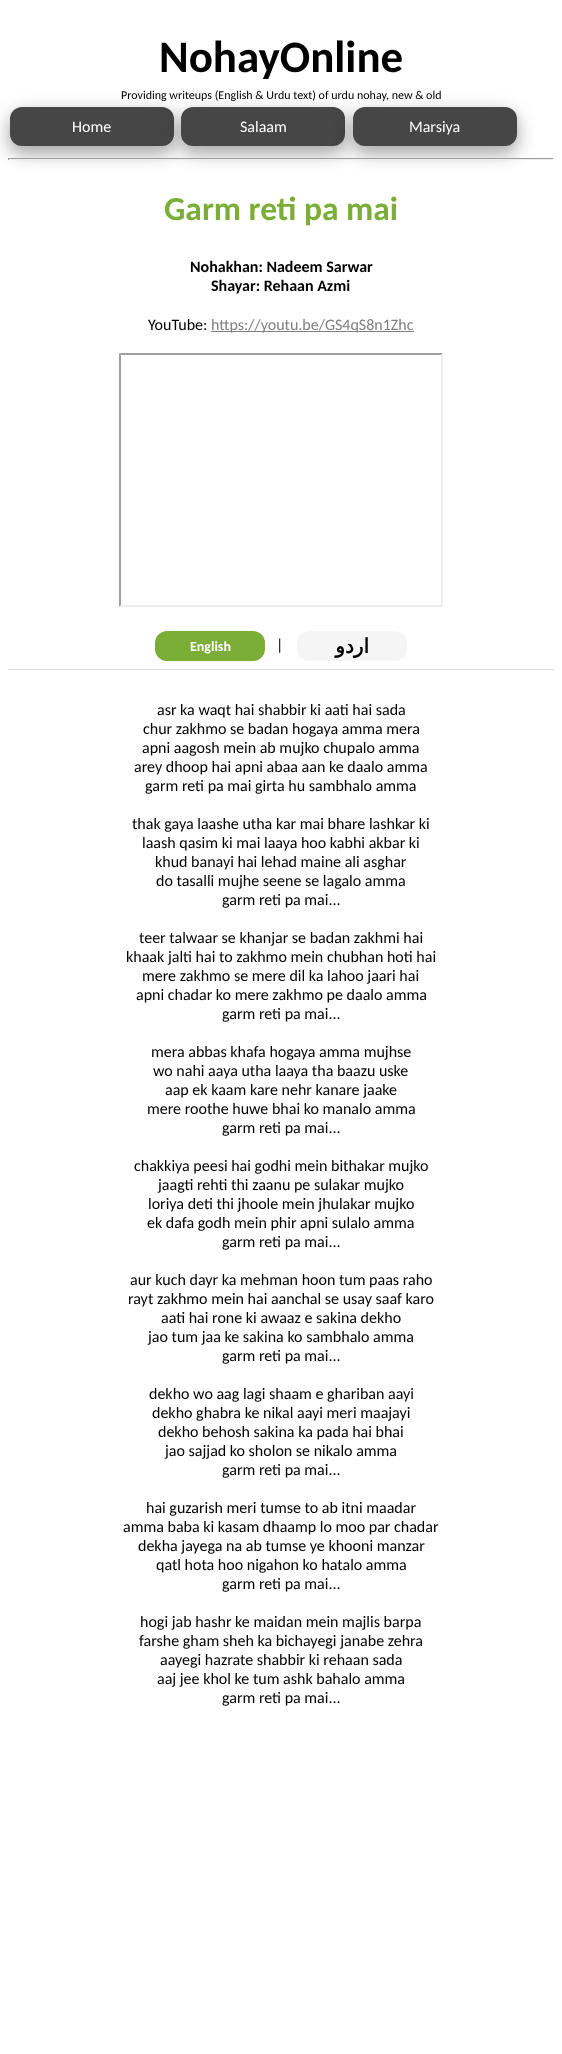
async function draw(canvas) {
  canvas.width = 562
  canvas.height = 2054
  const ctx = canvas.getContext('2d')
  ctx.miterLimit = 4
  ctx.fontKerning = 'normal'

  ctx.fillStyle = '#fff'
  ctx.fillRect(0, 0, 562, 2054)
  ctx.font = 'bold 45px Carlito'
  ctx.fillStyle = '#000'
  ctx.fillText('NohayOnline', 159, 72)
  ctx.font = '12px Carlito'
  ctx.fillText('Providing writeups (English & Urdu text) of urdu nohay, new & old', 121, 99)
  ctx.fillStyle = '#00000030'
  ctx.filter = 'blur(10px)'
  ctx.beginPath()
  ctx.roundRect(10, 113, 164, 39, 12)
  ctx.fill()
  ctx.filter = 'none'
  ctx.fillStyle = '#00000033'
  ctx.filter = 'blur(8px)'
  ctx.beginPath()
  ctx.roundRect(10, 115, 164, 39, 12)
  ctx.fill()
  ctx.filter = 'none'
  ctx.fillStyle = '#464646'
  ctx.beginPath()
  ctx.roundRect(10, 107, 164, 39, 12)
  ctx.fill()
  ctx.font = '16px Carlito'
  ctx.fillStyle = '#fff'
  ctx.fillText('Home', 72, 132)
  ctx.fillStyle = '#00000030'
  ctx.filter = 'blur(10px)'
  ctx.beginPath()
  ctx.roundRect(181, 113, 164, 39, 12)
  ctx.fill()
  ctx.filter = 'none'
  ctx.fillStyle = '#00000033'
  ctx.filter = 'blur(8px)'
  ctx.beginPath()
  ctx.roundRect(181, 115, 164, 39, 12)
  ctx.fill()
  ctx.filter = 'none'
  ctx.fillStyle = '#464646'
  ctx.beginPath()
  ctx.roundRect(181, 107, 164, 39, 12)
  ctx.fill()
  ctx.fillStyle = '#fff'
  ctx.fillText('Salaam', 240, 132)
  ctx.fillStyle = '#00000030'
  ctx.filter = 'blur(10px)'
  ctx.beginPath()
  ctx.roundRect(353, 113, 164, 39, 12)
  ctx.fill()
  ctx.filter = 'none'
  ctx.fillStyle = '#00000033'
  ctx.filter = 'blur(8px)'
  ctx.beginPath()
  ctx.roundRect(353, 115, 164, 39, 12)
  ctx.fill()
  ctx.filter = 'none'
  ctx.fillStyle = '#464646'
  ctx.beginPath()
  ctx.roundRect(353, 107, 164, 39, 12)
  ctx.fill()
  ctx.fillStyle = '#fff'
  ctx.fillText('Marsiya', 409, 132)
  ctx.fillStyle = '#9f9f9f'
  ctx.fillRect(8, 158, 546, 1)
  ctx.fillStyle = '#eee'
  ctx.fillRect(553, 158, 1, 2)
  ctx.fillRect(8, 159, 546, 1)
  ctx.fillStyle = '#9f9f9f'
  ctx.fillRect(8, 158, 1, 2)
  ctx.font = 'bold 33.5px Carlito'
  ctx.fillStyle = '#7bae37'
  ctx.fillText('Garm reti pa mai', 164, 220)
  ctx.font = 'bold 16px Carlito'
  ctx.fillStyle = '#000'
  ctx.fillText('Nohakhan: Nadeem Sarwar', 190, 272)
  ctx.fillText('Shayar: Rehaan Azmi', 211, 291)
  ctx.font = '16px Carlito'
  ctx.fillText('YouTube:', 148, 330)
  ctx.fillStyle = '#808080'
  ctx.fillRect(211, 331, 203, 1)
  ctx.fillText('https://youtu.be/GS4qS8n1Zhc', 211, 330)
  ctx.fillStyle = '#9f9f9f'
  ctx.beginPath()
  ctx.moveTo(119, 353)
  ctx.lineTo(443, 353)
  ctx.lineTo(441, 355)
  ctx.lineTo(121, 355)
  ctx.closePath()
  ctx.fill()
  ctx.fillStyle = '#eee'
  ctx.beginPath()
  ctx.moveTo(443, 353)
  ctx.lineTo(443, 607)
  ctx.lineTo(441, 605)
  ctx.lineTo(441, 355)
  ctx.closePath()
  ctx.fill()
  ctx.beginPath()
  ctx.moveTo(443, 607)
  ctx.lineTo(119, 607)
  ctx.lineTo(121, 605)
  ctx.lineTo(441, 605)
  ctx.closePath()
  ctx.fill()
  ctx.fillStyle = '#9f9f9f'
  ctx.beginPath()
  ctx.moveTo(119, 607)
  ctx.lineTo(119, 353)
  ctx.lineTo(121, 355)
  ctx.lineTo(121, 605)
  ctx.closePath()
  ctx.fill()
  ctx.fillStyle = '#7bae37'
  ctx.beginPath()
  ctx.roundRect(155, 631, 110, 30, 12)
  ctx.fill()
  ctx.font = 'bold 14px Carlito'
  ctx.fillStyle = '#fff'
  ctx.fillText('English', 190, 651)
  ctx.font = '16px Carlito'
  ctx.fillStyle = '#000'
  ctx.fillText('|', 276, 650)
  ctx.fillStyle = '#f5f5f5'
  ctx.beginPath()
  ctx.roundRect(297, 631, 110, 30, 12)
  ctx.fill()
  ctx.direction = 'rtl'
  ctx.font = 'bold 20px DejaVu Sans'
  ctx.fillStyle = '#000'
  ctx.fillText('اردو', 369, 653)
  ctx.fillStyle = '#ddd'
  ctx.fillRect(8, 669, 546, 1)
  ctx.direction = 'ltr'
  ctx.font = '16px Carlito'
  ctx.fillStyle = '#000'
  ctx.fillText('asr ka waqt hai shabbir ki aati hai sada', 157, 715)
  ctx.fillText('chur zakhmo se badan hogaya amma mera', 143, 734)
  ctx.fillText('apni aagosh mein ab mujko chupalo amma', 142, 753)
  ctx.fillText('arey dhoop hai apni abaa aan ke daalo amma', 134, 772)
  ctx.fillText('garm reti pa mai girta hu sambhalo amma', 145, 791)
  ctx.fillText('thak gaya laashe utha kar mai bhare lashkar ki', 132, 829)
  ctx.fillText('laash qasim ki mai laaya hoo kabhi akbar ki', 142, 848)
  ctx.fillText('khud banayi hai lehad maine ali asghar', 155, 867)
  ctx.fillText('do tasalli mujhe seene se lagalo amma', 156, 886)
  ctx.fillText('garm reti pa mai...', 222, 905)
  ctx.fillText('teer talwaar se khanjar se badan zakhmi hai', 139, 943)
  ctx.fillText('khaak jalti hai to zakhmo mein chubhan hoti hai', 126, 962)
  ctx.fillText('mere zakhmo se mere dil ka lahoo jaari hai', 142, 981)
  ctx.fillText('apni chadar ko mere zakhmo pe daalo amma', 136, 1000)
  ctx.fillText('garm reti pa mai...', 222, 1019)
  ctx.fillText('mera abbas khafa hogaya amma mujhse', 151, 1057)
  ctx.fillText('wo nahi aaya utha laaya tha baazu uske', 153, 1076)
  ctx.fillText('aap ek kaam kare nehr kanare jaake', 165, 1095)
  ctx.fillText('mere roothe huwe bhai ko manalo amma', 147, 1114)
  ctx.fillText('garm reti pa mai...', 222, 1133)
  ctx.fillText('chakkiya peesi hai godhi mein bithakar mujko', 134, 1171)
  ctx.fillText('jaagti rehti thi zaanu pe sulakar mujko', 158, 1190)
  ctx.fillText('loriya deti thi jhoole mein jhulakar mujko', 148, 1209)
  ctx.fillText('ek dafa godh mein phir apni sulalo amma', 147, 1228)
  ctx.fillText('garm reti pa mai...', 222, 1247)
  ctx.fillText('aur kuch dayr ka mehman hoon tum paas raho', 130, 1285)
  ctx.fillText('rayt zakhmo mein hai aanchal se usay saaf karo', 128, 1304)
  ctx.fillText('aati hai rone ki awaaz e sakina dekho', 161, 1323)
  ctx.fillText('jao tum jaa ke sakina ko sambhalo amma', 148, 1342)
  ctx.fillText('garm reti pa mai...', 222, 1361)
  ctx.fillText('dekho wo aag lagi shaam e ghariban aayi', 149, 1399)
  ctx.fillText('dekho ghabra ke nikal aayi meri maajayi', 152, 1418)
  ctx.fillText('dekho behosh sakina ka pada hai bhai', 158, 1437)
  ctx.fillText('jao sajjad ko sholon se nikalo amma', 165, 1456)
  ctx.fillText('garm reti pa mai...', 222, 1475)
  ctx.fillText('hai guzarish meri tumse to ab itni maadar', 146, 1513)
  ctx.fillText('amma baba ki kasam dhaamp lo moo par chadar', 123, 1532)
  ctx.fillText('dekha jayega na ab tumse ye khooni manzar', 138, 1551)
  ctx.fillText('qatl hota hoo nigahon ko hatalo amma', 156, 1570)
  ctx.fillText('garm reti pa mai...', 222, 1589)
  ctx.fillText('hogi jab hashr ke maidan mein majlis barpa', 140, 1627)
  ctx.fillText('farshe gham sheh ka bichayegi janabe zehra', 139, 1646)
  ctx.fillText('aayegi hazrate shabbir ki rehaan sada', 160, 1665)
  ctx.fillText('aaj jee khol ke tum ashk bahalo amma', 157, 1684)
  ctx.fillText('garm reti pa mai...', 222, 1703)
}

draw(document.querySelector('canvas'))
